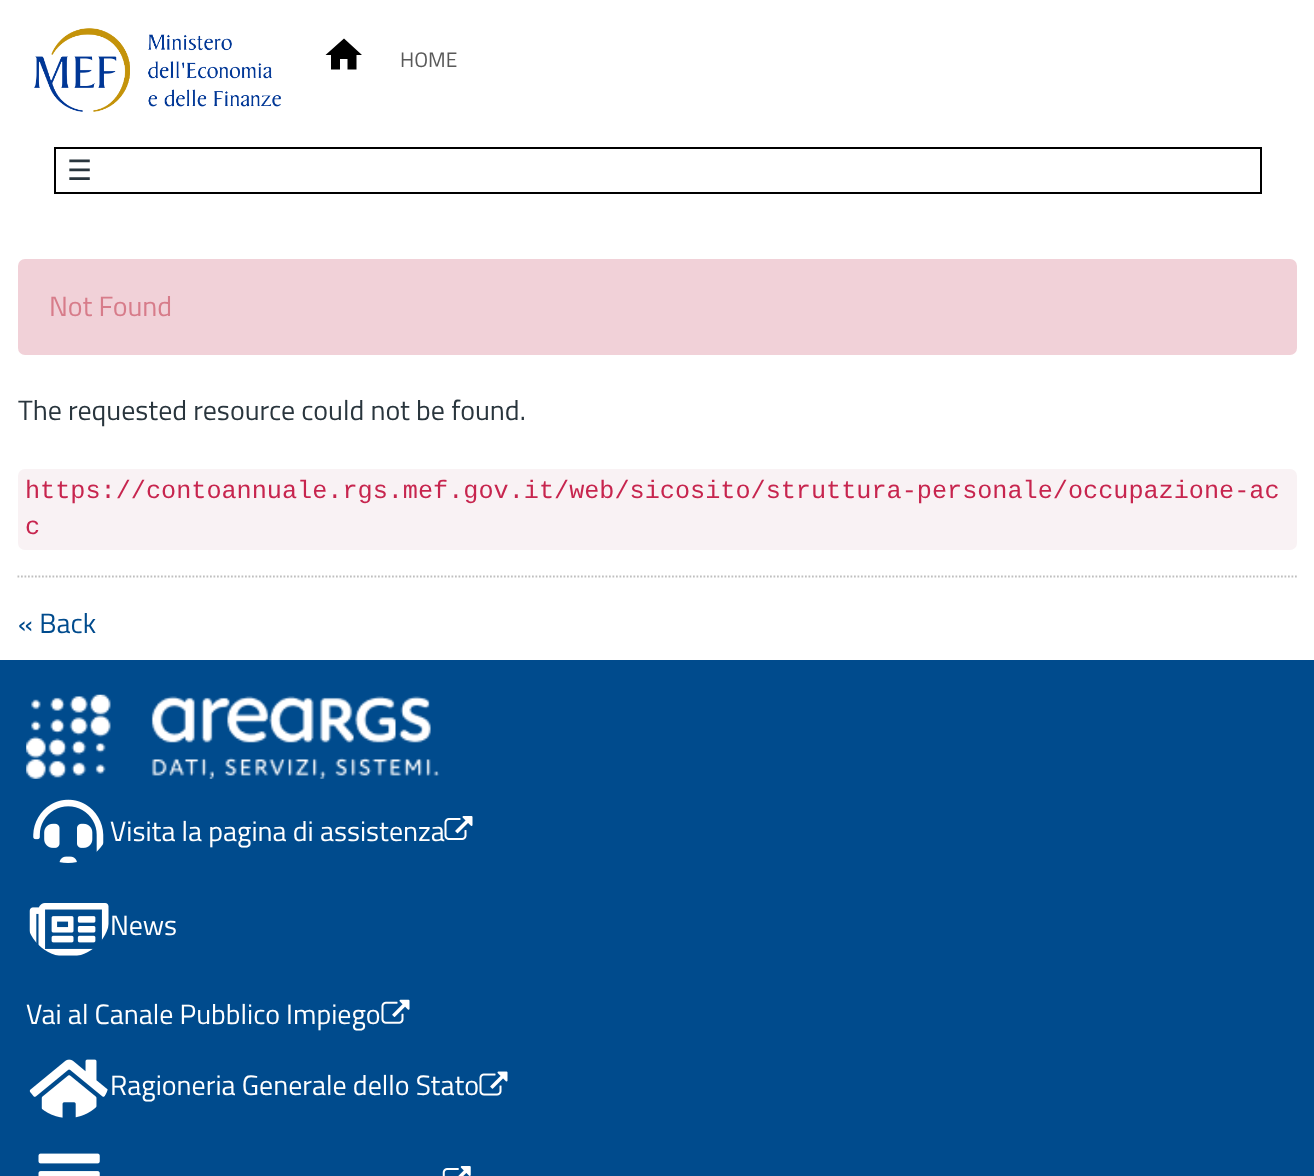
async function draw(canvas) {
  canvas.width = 1314
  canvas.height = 1176
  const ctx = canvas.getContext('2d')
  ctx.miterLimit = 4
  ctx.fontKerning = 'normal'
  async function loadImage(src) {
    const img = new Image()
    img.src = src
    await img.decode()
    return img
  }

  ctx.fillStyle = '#fff'
  ctx.fillRect(0, 0, 1314, 1176)
  ctx.drawImage(await loadImage('image0.png'), 34, 28, 247, 84)
  ctx.fillStyle = '#000'
  ctx.beginPath()
  ctx.moveTo(340, 69.5)
  ctx.lineTo(331, 69.5)
  ctx.lineTo(331, 55)
  ctx.lineTo(325.5, 55)
  ctx.lineTo(344, 38.5)
  ctx.lineTo(362, 55)
  ctx.lineTo(356.5, 55)
  ctx.lineTo(356.5, 69.5)
  ctx.lineTo(347.5, 69.5)
  ctx.lineTo(347.5, 59)
  ctx.lineTo(340, 59)
  ctx.closePath()
  ctx.fill()
  ctx.font = '21px Titillium Web'
  ctx.fillStyle = '#595959'
  ctx.fillText('HOME', 400, 67)
  ctx.strokeStyle = '#000'
  ctx.lineWidth = 2
  ctx.strokeRect(55, 148, 1206, 45)
  ctx.font = '28px DejaVu Sans'
  ctx.fillStyle = '#29353d'
  ctx.fillText('☰', 67, 180)
  ctx.fillStyle = '#f1d1d8'
  ctx.beginPath()
  ctx.roundRect(18, 259, 1279, 96, 7)
  ctx.fill()
  ctx.font = '28px Titillium Web'
  ctx.fillStyle = '#d77c8a'
  ctx.fillText('Not Found', 49, 316)
  ctx.fillStyle = '#29353d'
  ctx.fillText('The requested resource could not be found.', 18, 420)
  ctx.fillStyle = '#f9f2f4'
  ctx.beginPath()
  ctx.roundRect(18, 469, 1279, 81, 7)
  ctx.fill()
  ctx.font = '25.2px Liberation Mono'
  ctx.fillStyle = '#c7254e'
  ctx.fillText('https://contoannuale.rgs.mef.gov.it/web/sicosito/struttura-personale/occupazione-ac', 25, 498)
  ctx.fillText('c', 25, 534)
  ctx.beginPath()
  ctx.moveTo(17.5, 576.5)
  ctx.lineTo(1297, 576.5)
  ctx.strokeStyle = '#bfbfbf'
  ctx.lineWidth = 1.8
  ctx.setLineDash([1.75, 1.75])
  ctx.stroke()
  ctx.font = '28px Titillium Web'
  ctx.fillStyle = '#004b8d'
  ctx.fillText('« Back', 18, 633)
  ctx.fillRect(0, 660, 1314, 516)
  ctx.drawImage(await loadImage('image1.png'), 26, 694, 414, 85)
  ctx.drawImage(await loadImage('image2.png'), 33, 799, 71, 64)
  ctx.fillStyle = '#fff'
  ctx.fillText('Visita la pagina di assistenza', 110, 841)
  ctx.drawImage(await loadImage('image3.png'), 444, 816, 29, 24)
  ctx.drawImage(await loadImage('image4.png'), 29, 903, 80, 53)
  ctx.fillText('News', 110, 935)
  ctx.fillText('Vai al Canale Pubblico Impiego', 26, 1024)
  ctx.drawImage(await loadImage('image5.png'), 381, 999, 29, 25)
  ctx.drawImage(await loadImage('image6.png'), 29, 1059, 79, 59)
  ctx.fillText('Ragioneria Generale dello Stato', 110, 1095)
  ctx.drawImage(await loadImage('image7.png'), 479, 1071, 29, 25)
  ctx.drawImage(await loadImage('image8.png'), 38, 1153, 62, 23)
  ctx.drawImage(await loadImage('image9.png'), 442, 1166, 29, 10)
}

draw(document.querySelector('canvas'))
